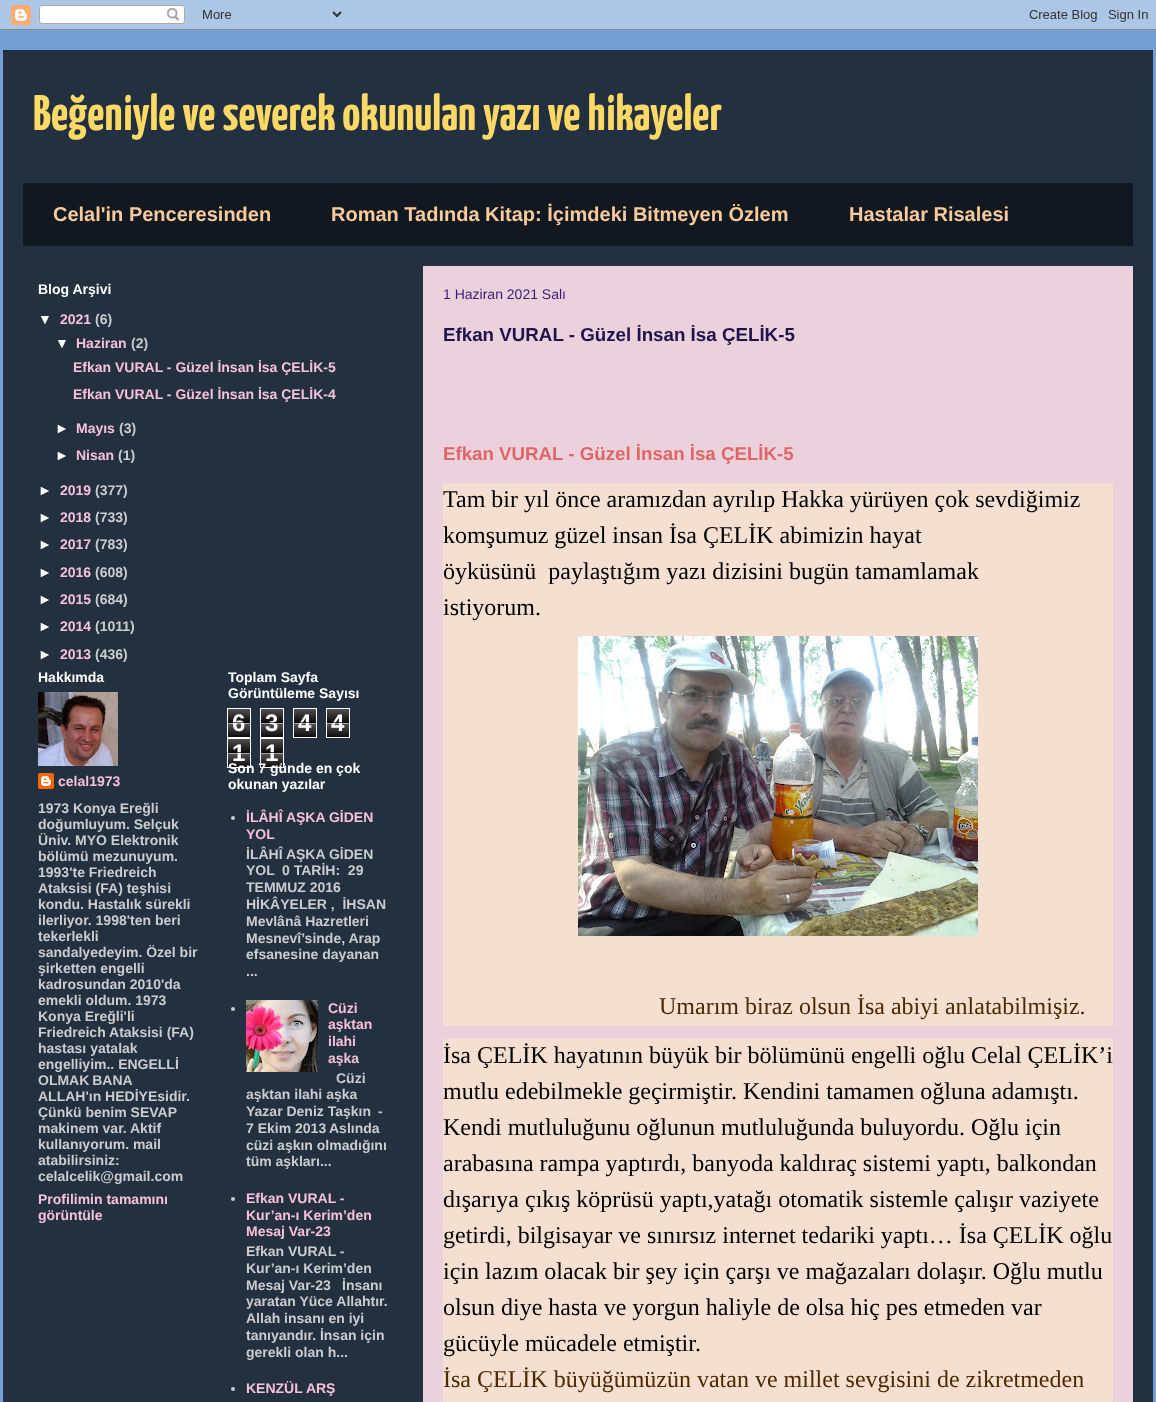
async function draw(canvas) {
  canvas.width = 1156
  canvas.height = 1402
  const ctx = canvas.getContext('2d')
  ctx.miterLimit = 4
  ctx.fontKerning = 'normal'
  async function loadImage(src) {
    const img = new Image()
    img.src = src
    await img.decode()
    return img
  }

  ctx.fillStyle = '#75a0d5'
  ctx.fillRect(0, 0, 1156, 1402)
  ctx.drawImage(await loadImage('image0.png'), 0, 0, 1156, 30)
  ctx.fillStyle = '#233040'
  ctx.fillRect(3, 50, 1150, 1352)
  ctx.font = '200 50px Yanone Kaffeesatz'
  ctx.fillStyle = '#ffd966'
  ctx.fillText('Beğeniyle ve severek okunulan yazı ve hikayeler', 33, 130)
  ctx.fillStyle = '#121820'
  ctx.fillRect(23, 183, 1110, 63)
  ctx.font = 'bold 20px Liberation Sans'
  ctx.fillStyle = '#f9cb9c'
  ctx.fillText('Celal\'in Penceresinden', 53, 221)
  ctx.fillText('Roman Tadında Kitap: İçimdeki Bitmeyen Özlem', 331, 221)
  ctx.fillText('Hastalar Risalesi', 849, 221)
  ctx.font = 'bold 14px Liberation Sans'
  ctx.fillStyle = '#fff'
  ctx.fillText('Blog Arşivi', 38, 294)
  ctx.fillText('▼', 38, 324)
  ctx.fillStyle = '#f6c1d8'
  ctx.fillText('2021', 60, 324)
  ctx.fillStyle = '#ccc'
  ctx.fillText('(6)', 95, 324)
  ctx.fillStyle = '#fff'
  ctx.fillText('▼', 55, 348)
  ctx.fillStyle = '#f6c1d8'
  ctx.fillText('Haziran', 76, 348)
  ctx.fillStyle = '#ccc'
  ctx.fillText('(2)', 131, 348)
  ctx.fillStyle = '#f6c1d8'
  ctx.fillText('Efkan VURAL - Güzel İnsan İsa ÇELİK-5', 73, 372)
  ctx.fillText('Efkan VURAL - Güzel İnsan İsa ÇELİK-4', 73, 399)
  ctx.fillStyle = '#fff'
  ctx.fillText('►', 55, 433)
  ctx.fillStyle = '#f6c1d8'
  ctx.fillText('Mayıs', 76, 433)
  ctx.fillStyle = '#ccc'
  ctx.fillText('(3)', 119, 433)
  ctx.fillStyle = '#fff'
  ctx.fillText('►', 55, 460)
  ctx.fillStyle = '#f6c1d8'
  ctx.fillText('Nisan', 76, 460)
  ctx.fillStyle = '#ccc'
  ctx.fillText('(1)', 118, 460)
  ctx.fillStyle = '#fff'
  ctx.fillText('►', 38, 495)
  ctx.fillStyle = '#f6c1d8'
  ctx.fillText('2019', 60, 495)
  ctx.fillStyle = '#ccc'
  ctx.fillText('(377)', 95, 495)
  ctx.fillStyle = '#fff'
  ctx.fillText('►', 38, 522)
  ctx.fillStyle = '#f6c1d8'
  ctx.fillText('2018', 60, 522)
  ctx.fillStyle = '#ccc'
  ctx.fillText('(733)', 95, 522)
  ctx.fillStyle = '#fff'
  ctx.fillText('►', 38, 549)
  ctx.fillStyle = '#f6c1d8'
  ctx.fillText('2017', 60, 549)
  ctx.fillStyle = '#ccc'
  ctx.fillText('(783)', 95, 549)
  ctx.fillStyle = '#fff'
  ctx.fillText('►', 38, 577)
  ctx.fillStyle = '#f6c1d8'
  ctx.fillText('2016', 60, 577)
  ctx.fillStyle = '#ccc'
  ctx.fillText('(608)', 95, 577)
  ctx.fillStyle = '#fff'
  ctx.fillText('►', 38, 604)
  ctx.fillStyle = '#f6c1d8'
  ctx.fillText('2015', 60, 604)
  ctx.fillStyle = '#ccc'
  ctx.fillText('(684)', 95, 604)
  ctx.fillStyle = '#fff'
  ctx.fillText('►', 38, 631)
  ctx.fillStyle = '#f6c1d8'
  ctx.fillText('2014', 60, 631)
  ctx.fillStyle = '#ccc'
  ctx.fillText('(1011)', 95, 631)
  ctx.fillStyle = '#fff'
  ctx.fillText('►', 38, 659)
  ctx.fillStyle = '#f6c1d8'
  ctx.fillText('2013', 60, 659)
  ctx.fillStyle = '#ccc'
  ctx.fillText('(436)', 95, 659)
  ctx.fillStyle = '#fff'
  ctx.fillText('Hakkımda', 38, 682)
  ctx.drawImage(await loadImage('image1.png'), 38, 692, 80, 74)
  ctx.drawImage(await loadImage('image2.png'), 38, 773, 16, 16)
  ctx.fillStyle = '#f6c1d8'
  ctx.fillText('celal1973', 58, 786)
  ctx.fillStyle = '#ccc'
  ctx.fillText('1973 Konya Ereğli', 38, 813)
  ctx.fillText('doğumluyum. Selçuk', 38, 829)
  ctx.fillText('Üniv. MYO Elektronik', 38, 845)
  ctx.fillText('bölümü mezunuyum.', 38, 861)
  ctx.fillText('1993\'te Friedreich', 38, 877)
  ctx.fillText('Ataksisi (FA) teşhisi', 38, 893)
  ctx.fillText('kondu. Hastalık sürekli', 38, 909)
  ctx.fillText('ilerliyor. 1998\'ten beri', 38, 925)
  ctx.fillText('tekerlekli', 38, 941)
  ctx.fillText('sandalyedeyim. Özel bir', 38, 957)
  ctx.fillText('şirketten engelli', 38, 973)
  ctx.fillText('kadrosundan 2010\'da', 38, 989)
  ctx.fillText('emekli oldum. 1973', 38, 1005)
  ctx.fillText('Konya Ereğli\'li', 38, 1021)
  ctx.fillText('Friedreich Ataksisi (FA)', 38, 1037)
  ctx.fillText('hastası yatalak', 38, 1053)
  ctx.fillText('engelliyim.. ENGELLİ', 38, 1069)
  ctx.wordSpacing = '-1px'
  ctx.fillText('OLMAK BANA', 38, 1085)
  ctx.wordSpacing = '0px'
  ctx.fillText('ALLAH\'ın HEDİYEsidir.', 38, 1101)
  ctx.fillText('Çünkü benim SEVAP', 38, 1117)
  ctx.fillText('makinem var.', 38, 1133)
  ctx.fillText('Aktif', 130, 1133)
  ctx.fillText('kullanıyorum. mail', 38, 1149)
  ctx.fillText('atabilirsiniz:', 38, 1165)
  ctx.fillText('celalcelik@gmail.com', 38, 1181)
  ctx.fillStyle = '#f6c1d8'
  ctx.fillText('Profilimin tamamını', 38, 1204)
  ctx.fillText('görüntüle', 38, 1220)
  ctx.fillStyle = '#fff'
  ctx.fillText('Toplam Sayfa', 228, 682)
  ctx.fillText('Görüntüleme Sayısı', 228, 698)
  ctx.drawImage(await loadImage('image3.png'), 228, 709, 22, 28)
  ctx.strokeStyle = '#fff'
  ctx.strokeRect(227.5, 708.5, 23, 29)
  ctx.font = 'bold 24px Liberation Sans'
  ctx.fillText('6', 232, 731)
  ctx.fillStyle = '#000000a6'
  ctx.fillRect(228, 722, 22, 1)
  ctx.fillStyle = '#ffffffa6'
  ctx.fillRect(228, 723, 22, 1)
  ctx.drawImage(await loadImage('image3.png'), 261, 709, 22, 28)
  ctx.strokeRect(260.5, 708.5, 23, 29)
  ctx.fillStyle = '#fff'
  ctx.fillText('3', 265, 731)
  ctx.fillStyle = '#000000a6'
  ctx.fillRect(261, 722, 22, 1)
  ctx.fillStyle = '#ffffffa6'
  ctx.fillRect(261, 723, 22, 1)
  ctx.drawImage(await loadImage('image3.png'), 294, 709, 22, 28)
  ctx.strokeRect(293.5, 708.5, 23, 29)
  ctx.fillStyle = '#fff'
  ctx.fillText('4', 298, 731)
  ctx.fillStyle = '#000000a6'
  ctx.fillRect(294, 722, 22, 1)
  ctx.fillStyle = '#ffffffa6'
  ctx.fillRect(294, 723, 22, 1)
  ctx.drawImage(await loadImage('image3.png'), 327, 709, 22, 28)
  ctx.strokeRect(326.5, 708.5, 23, 29)
  ctx.fillStyle = '#fff'
  ctx.fillText('4', 331, 731)
  ctx.fillStyle = '#000000a6'
  ctx.fillRect(327, 722, 22, 1)
  ctx.fillStyle = '#ffffffa6'
  ctx.fillRect(327, 723, 22, 1)
  ctx.drawImage(await loadImage('image3.png'), 228, 739, 22, 28)
  ctx.strokeRect(227.5, 738.5, 23, 29)
  ctx.fillStyle = '#fff'
  ctx.fillText('1', 232, 761)
  ctx.fillStyle = '#000000a6'
  ctx.fillRect(228, 752, 22, 1)
  ctx.fillStyle = '#ffffffa6'
  ctx.fillRect(228, 753, 22, 1)
  ctx.drawImage(await loadImage('image3.png'), 261, 739, 22, 28)
  ctx.strokeRect(260.5, 738.5, 23, 29)
  ctx.fillStyle = '#fff'
  ctx.fillText('1', 265, 761)
  ctx.fillStyle = '#000000a6'
  ctx.fillRect(261, 752, 22, 1)
  ctx.fillStyle = '#ffffffa6'
  ctx.fillRect(261, 753, 22, 1)
  ctx.font = 'bold 14px Liberation Sans'
  ctx.fillStyle = '#fff'
  ctx.fillText('Son 7 günde en çok', 228, 773)
  ctx.fillText('okunan yazılar', 228, 789)
  ctx.fillStyle = '#ccc'
  ctx.beginPath()
  ctx.arc(233, 818, 2, 0, 2 * Math.PI)
  ctx.fill()
  ctx.fillStyle = '#f6c1d8'
  ctx.fillText('İLÂHÎ AŞKA GİDEN', 246, 822)
  ctx.fillText('YOL', 246, 839)
  ctx.fillStyle = '#ccc'
  ctx.fillText('İLÂHÎ AŞKA GİDEN', 246, 859)
  ctx.fillText('YOL', 246, 875)
  ctx.fillText('0 TARİH:  29', 282, 875)
  ctx.fillText('TEMMUZ 2016', 246, 892)
  ctx.fillText('HİKÂYELER ,  İHSAN', 246, 909)
  ctx.fillText('Mevlânâ Hazretleri', 246, 926)
  ctx.fillText('Mesnevî’sinde, Arap', 246, 943)
  ctx.fillText('efsanesine dayanan', 246, 959)
  ctx.fillText('...', 246, 976)
  ctx.beginPath()
  ctx.arc(233, 1009, 2, 0, 2 * Math.PI)
  ctx.fill()
  ctx.drawImage(await loadImage('image4.png'), 246, 1000, 72, 72)
  ctx.fillStyle = '#f6c1d8'
  ctx.fillText('Cüzi', 328, 1013)
  ctx.fillText('aşktan', 328, 1029)
  ctx.fillText('ilahi', 328, 1046)
  ctx.fillText('aşka', 328, 1063)
  ctx.fillStyle = '#ccc'
  ctx.fillText('Cüzi', 336, 1083)
  ctx.fillText('aşktan ilahi aşka', 246, 1099)
  ctx.fillText('Yazar Deniz Taşkın', 246, 1116)
  ctx.fillText('-', 378, 1116)
  ctx.fillText('7 Ekim 2013', 246, 1133)
  ctx.fillText('Aslında', 329, 1133)
  ctx.fillText('cüzi aşkın olmadığını', 246, 1150)
  ctx.fillText('tüm aşkları...', 246, 1166)
  ctx.beginPath()
  ctx.arc(233, 1199, 2, 0, 2 * Math.PI)
  ctx.fill()
  ctx.fillStyle = '#f6c1d8'
  ctx.fillText('Efkan VURAL -', 246, 1203)
  ctx.fillText('Kur’an-ı Kerim’den', 246, 1220)
  ctx.fillText('Mesaj Var-23', 246, 1236)
  ctx.fillStyle = '#ccc'
  ctx.fillText('Efkan VURAL -', 246, 1256)
  ctx.fillText('Kur’an-ı Kerim’den', 246, 1273)
  ctx.fillText('Mesaj Var-23', 246, 1290)
  ctx.fillText('İnsanı', 342, 1290)
  ctx.fillText('yaratan Yüce Allahtır.', 246, 1306)
  ctx.fillText('Allah insanı en iyi', 246, 1323)
  ctx.fillText('tanıyandır. İnsan için', 246, 1340)
  ctx.fillText('gerekli olan h...', 246, 1357)
  ctx.beginPath()
  ctx.arc(233, 1389, 2, 0, 2 * Math.PI)
  ctx.fill()
  ctx.fillStyle = '#f6c1d8'
  ctx.fillText('KENZÜL ARŞ', 246, 1393)
  ctx.fillStyle = '#ead1dc'
  ctx.fillRect(423, 266, 710, 1136)
  ctx.font = '14px Liberation Sans'
  ctx.fillStyle = '#351c75'
  ctx.fillText('1 Haziran 2021 Salı', 443, 299)
  ctx.font = 'bold 18.75px Liberation Sans'
  ctx.fillStyle = '#20124d'
  ctx.fillText('Efkan VURAL - Güzel İnsan İsa ÇELİK-5', 443, 341)
  ctx.font = 'bold 18.7px Liberation Sans'
  ctx.fillStyle = '#e06666'
  ctx.fillText('Efkan VURAL - Güzel İnsan İsa ÇELİK-5', 443, 460)
  ctx.fillStyle = '#f4dfd1'
  ctx.fillRect(443, 483, 670, 543)
  ctx.font = '24px Liberation Serif'
  ctx.fillStyle = '#000'
  ctx.fillText('Tam bir yıl önce aramızdan ayrılıp Hakka yürüyen çok sevdiğimiz', 443, 507)
  ctx.fillText('komşumuz güzel insan İsa ÇELİK abimizin hayat', 443, 543)
  ctx.fillText('öyküsünü  paylaştığım yazı dizisini bugün tamamlamak', 443, 579)
  ctx.fillText('istiyorum.', 443, 615)
  ctx.drawImage(await loadImage('image5.png'), 578, 636, 400, 300)
  ctx.fillStyle = '#4e2800'
  ctx.fillText('Umarım biraz olsun İsa abiyi anlatabilmişiz.', 659, 1014)
  ctx.fillStyle = '#f4dfd1'
  ctx.fillRect(443, 1039, 670, 363)
  ctx.fillStyle = '#000'
  ctx.fillText('İsa ÇELİK hayatının büyük bir bölümünü engelli oğlu Celal ÇELİK’i', 443, 1063)
  ctx.fillText('mutlu edebilmekle geçirmiştir. Kendini tamamen oğluna adamıştı.', 443, 1099)
  ctx.fillText('Kendi mutluluğunu oğlunun mutluluğunda buluyordu. Oğlu için', 443, 1135)
  ctx.fillText('arabasına rampa yaptırdı, banyoda kaldıraç sistemi yaptı, balkondan', 443, 1171)
  ctx.fillText('dışarıya çıkış köprüsü yaptı,yatağı otomatik sistemle çalışır vaziyete', 443, 1207)
  ctx.fillText('getirdi, bilgisayar ve sınırsız internet tedariki yaptı… İsa ÇELİK oğlu', 443, 1243)
  ctx.fillText('için lazım olacak bir şey için çarşı ve mağazaları dolaşır. Oğlu mutlu', 443, 1279)
  ctx.fillText('olsun diye hasta ve yorgun haliyle de olsa hiç pes etmeden var', 443, 1315)
  ctx.fillText('gücüyle mücadele etmiştir.', 443, 1351)
  ctx.fillStyle = '#4e2800'
  ctx.fillText('İsa ÇELİK büyüğümüzün vatan ve millet sevgisini de zikretmeden', 443, 1387)
}

draw(document.querySelector('canvas'))
